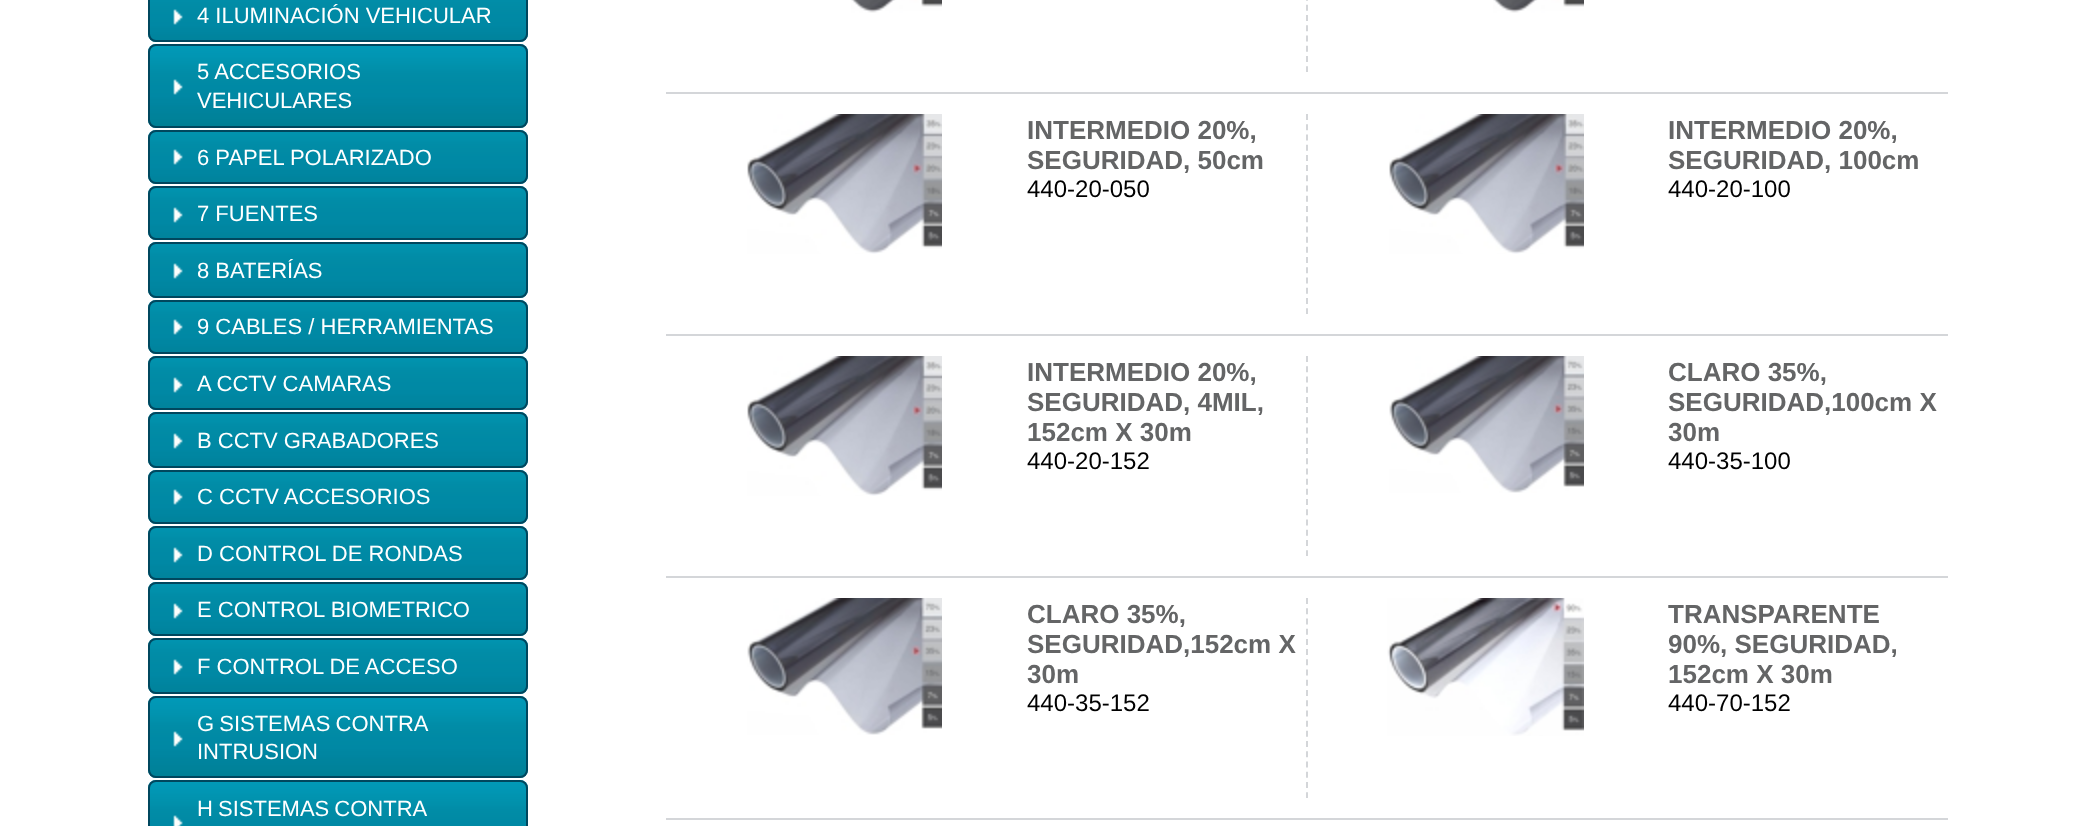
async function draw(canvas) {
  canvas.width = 2093
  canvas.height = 826
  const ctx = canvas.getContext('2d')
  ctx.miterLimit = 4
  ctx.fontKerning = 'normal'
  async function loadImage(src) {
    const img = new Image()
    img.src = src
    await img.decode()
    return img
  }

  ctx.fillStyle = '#fff'
  ctx.fillRect(0, 0, 2093, 826)
  ctx.drawImage(await loadImage('image0.png'), 148, 0, 380, 42)
  ctx.beginPath()
  ctx.roundRect(149, -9, 378, 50, 7)
  ctx.strokeStyle = '#00475e'
  ctx.lineWidth = 2
  ctx.stroke()
  ctx.drawImage(await loadImage('image1.png'), 173, 9, 10, 16)
  ctx.font = '22px Liberation Sans'
  ctx.fillText('4 ILUMINACIÓN VEHICULAR', 197, 23)
  ctx.drawImage(await loadImage('image2.png'), 148, 44, 380, 84)
  ctx.beginPath()
  ctx.roundRect(149, 45, 378, 82, 7)
  ctx.stroke()
  ctx.drawImage(await loadImage('image3.png'), 173, 79, 10, 16)
  ctx.fillText('5 ACCESORIOS', 197, 79)
  ctx.fillText('VEHICULARES', 197, 108)
  ctx.drawImage(await loadImage('image4.png'), 148, 130, 380, 54)
  ctx.beginPath()
  ctx.roundRect(149, 131, 378, 52, 7)
  ctx.stroke()
  ctx.drawImage(await loadImage('image5.png'), 173, 149, 10, 16)
  ctx.fillText('6 PAPEL POLARIZADO', 197, 165)
  ctx.drawImage(await loadImage('image4.png'), 148, 186, 380, 54)
  ctx.beginPath()
  ctx.roundRect(149, 187, 378, 52, 7)
  ctx.stroke()
  ctx.drawImage(await loadImage('image1.png'), 173, 207, 10, 16)
  ctx.fillText('7 FUENTES', 197, 221)
  ctx.drawImage(await loadImage('image6.png'), 148, 242, 380, 56)
  ctx.beginPath()
  ctx.roundRect(149, 243, 378, 54, 7)
  ctx.stroke()
  ctx.drawImage(await loadImage('image1.png'), 173, 263, 10, 16)
  ctx.fillText('8 BATERÍAS', 197, 278)
  ctx.drawImage(await loadImage('image4.png'), 148, 300, 380, 54)
  ctx.beginPath()
  ctx.roundRect(149, 301, 378, 52, 7)
  ctx.stroke()
  ctx.drawImage(await loadImage('image5.png'), 173, 319, 10, 16)
  ctx.fillText('9 CABLES / HERRAMIENTAS', 197, 334)
  ctx.drawImage(await loadImage('image4.png'), 148, 356, 380, 54)
  ctx.beginPath()
  ctx.roundRect(149, 357, 378, 52, 7)
  ctx.stroke()
  ctx.drawImage(await loadImage('image1.png'), 173, 377, 10, 16)
  ctx.fillText('A CCTV CAMARAS', 197, 391)
  ctx.drawImage(await loadImage('image6.png'), 148, 412, 380, 56)
  ctx.beginPath()
  ctx.roundRect(149, 413, 378, 54, 7)
  ctx.stroke()
  ctx.drawImage(await loadImage('image1.png'), 173, 433, 10, 16)
  ctx.fillText('B CCTV GRABADORES', 197, 448)
  ctx.drawImage(await loadImage('image4.png'), 148, 470, 380, 54)
  ctx.beginPath()
  ctx.roundRect(149, 471, 378, 52, 7)
  ctx.stroke()
  ctx.drawImage(await loadImage('image5.png'), 173, 489, 10, 16)
  ctx.fillText('C CCTV ACCESORIOS', 197, 504)
  ctx.drawImage(await loadImage('image4.png'), 148, 526, 380, 54)
  ctx.beginPath()
  ctx.roundRect(149, 527, 378, 52, 7)
  ctx.stroke()
  ctx.drawImage(await loadImage('image1.png'), 173, 547, 10, 16)
  ctx.fillText('D CONTROL DE RONDAS', 197, 561)
  ctx.drawImage(await loadImage('image4.png'), 148, 582, 380, 54)
  ctx.beginPath()
  ctx.roundRect(149, 583, 378, 52, 7)
  ctx.stroke()
  ctx.drawImage(await loadImage('image1.png'), 173, 603, 10, 16)
  ctx.fillText('E CONTROL BIOMETRICO', 197, 617)
  ctx.drawImage(await loadImage('image6.png'), 148, 638, 380, 56)
  ctx.beginPath()
  ctx.roundRect(149, 639, 378, 54, 7)
  ctx.stroke()
  ctx.drawImage(await loadImage('image1.png'), 173, 659, 10, 16)
  ctx.fillText('F CONTROL DE ACCESO', 197, 674)
  ctx.drawImage(await loadImage('image7.png'), 148, 696, 380, 82)
  ctx.beginPath()
  ctx.roundRect(149, 697, 378, 80, 7)
  ctx.stroke()
  ctx.drawImage(await loadImage('image3.png'), 173, 731, 10, 16)
  ctx.wordSpacing = '-1px'
  ctx.fillText('G SISTEMAS CONTRA', 197, 731)
  ctx.wordSpacing = '0px'
  ctx.fillText('INTRUSION', 197, 759)
  ctx.drawImage(await loadImage('image8.png'), 148, 780, 380, 46)
  ctx.beginPath()
  ctx.roundRect(149, 781, 378, 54, 7)
  ctx.stroke()
  ctx.wordSpacing = '-1px'
  ctx.fillText('H SISTEMAS CONTRA', 197, 816)
  ctx.drawImage(await loadImage('image9.png'), 173, 815, 10, 11)
  ctx.fillStyle = '#d4d6d9'
  ctx.fillRect(666, 92, 1282, 2)
  ctx.drawImage(await loadImage('image10.png'), 851, 0, 91, 13)
  ctx.beginPath()
  ctx.moveTo(1307, -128)
  ctx.lineTo(1307, 72)
  ctx.strokeStyle = '#d4d6d9'
  ctx.setLineDash([6, 4.22])
  ctx.stroke()
  ctx.drawImage(await loadImage('image10.png'), 1493, 0, 91, 13)
  ctx.fillRect(666, 334, 1282, 2)
  ctx.drawImage(await loadImage('image11.png'), 747, 114, 195, 140)
  ctx.wordSpacing = '0px'
  ctx.font = 'bold 26px Liberation Sans'
  ctx.fillStyle = '#646566'
  ctx.fillText('INTERMEDIO 20%,', 1027, 139)
  ctx.fillText('SEGURIDAD, 50cm', 1027, 169)
  ctx.font = '24px Liberation Sans'
  ctx.fillStyle = '#000'
  ctx.fillText('440-20-050', 1027, 197)
  ctx.beginPath()
  ctx.moveTo(1307, 114)
  ctx.lineTo(1307, 314)
  ctx.stroke()
  ctx.drawImage(await loadImage('image11.png'), 1389, 114, 195, 140)
  ctx.font = 'bold 26px Liberation Sans'
  ctx.fillStyle = '#646566'
  ctx.fillText('INTERMEDIO 20%,', 1668, 139)
  ctx.fillText('SEGURIDAD, 100cm', 1668, 169)
  ctx.font = '24px Liberation Sans'
  ctx.fillStyle = '#000'
  ctx.fillText('440-20-100', 1668, 197)
  ctx.fillStyle = '#d4d6d9'
  ctx.fillRect(666, 576, 1282, 2)
  ctx.drawImage(await loadImage('image11.png'), 747, 356, 195, 140)
  ctx.font = 'bold 26px Liberation Sans'
  ctx.fillStyle = '#646566'
  ctx.fillText('INTERMEDIO 20%,', 1027, 381)
  ctx.fillText('SEGURIDAD, 4MIL,', 1027, 411)
  ctx.fillText('152cm X 30m', 1027, 441)
  ctx.font = '24px Liberation Sans'
  ctx.fillStyle = '#000'
  ctx.fillText('440-20-152', 1027, 469)
  ctx.beginPath()
  ctx.moveTo(1307, 356)
  ctx.lineTo(1307, 556)
  ctx.stroke()
  ctx.drawImage(await loadImage('image12.png'), 1389, 356, 195, 137)
  ctx.font = 'bold 26px Liberation Sans'
  ctx.fillStyle = '#646566'
  ctx.fillText('CLARO 35%,', 1668, 381)
  ctx.fillText('SEGURIDAD,100cm X', 1668, 411)
  ctx.fillText('30m', 1668, 441)
  ctx.font = '24px Liberation Sans'
  ctx.fillStyle = '#000'
  ctx.fillText('440-35-100', 1668, 469)
  ctx.fillStyle = '#d4d6d9'
  ctx.fillRect(666, 818, 1282, 2)
  ctx.drawImage(await loadImage('image12.png'), 747, 598, 195, 137)
  ctx.font = 'bold 26px Liberation Sans'
  ctx.fillStyle = '#646566'
  ctx.fillText('CLARO 35%,', 1027, 623)
  ctx.fillText('SEGURIDAD,152cm X', 1027, 653)
  ctx.fillText('30m', 1027, 683)
  ctx.font = '24px Liberation Sans'
  ctx.fillStyle = '#000'
  ctx.fillText('440-35-152', 1027, 711)
  ctx.beginPath()
  ctx.moveTo(1307, 598)
  ctx.lineTo(1307, 798)
  ctx.stroke()
  ctx.drawImage(await loadImage('image13.png'), 1387, 598, 197, 138)
  ctx.font = 'bold 26px Liberation Sans'
  ctx.fillStyle = '#646566'
  ctx.fillText('TRANSPARENTE', 1668, 623)
  ctx.fillText('90%, SEGURIDAD,', 1668, 653)
  ctx.fillText('152cm X 30m', 1668, 683)
  ctx.font = '24px Liberation Sans'
  ctx.fillStyle = '#000'
  ctx.fillText('440-70-152', 1668, 711)
}

draw(document.querySelector('canvas'))
